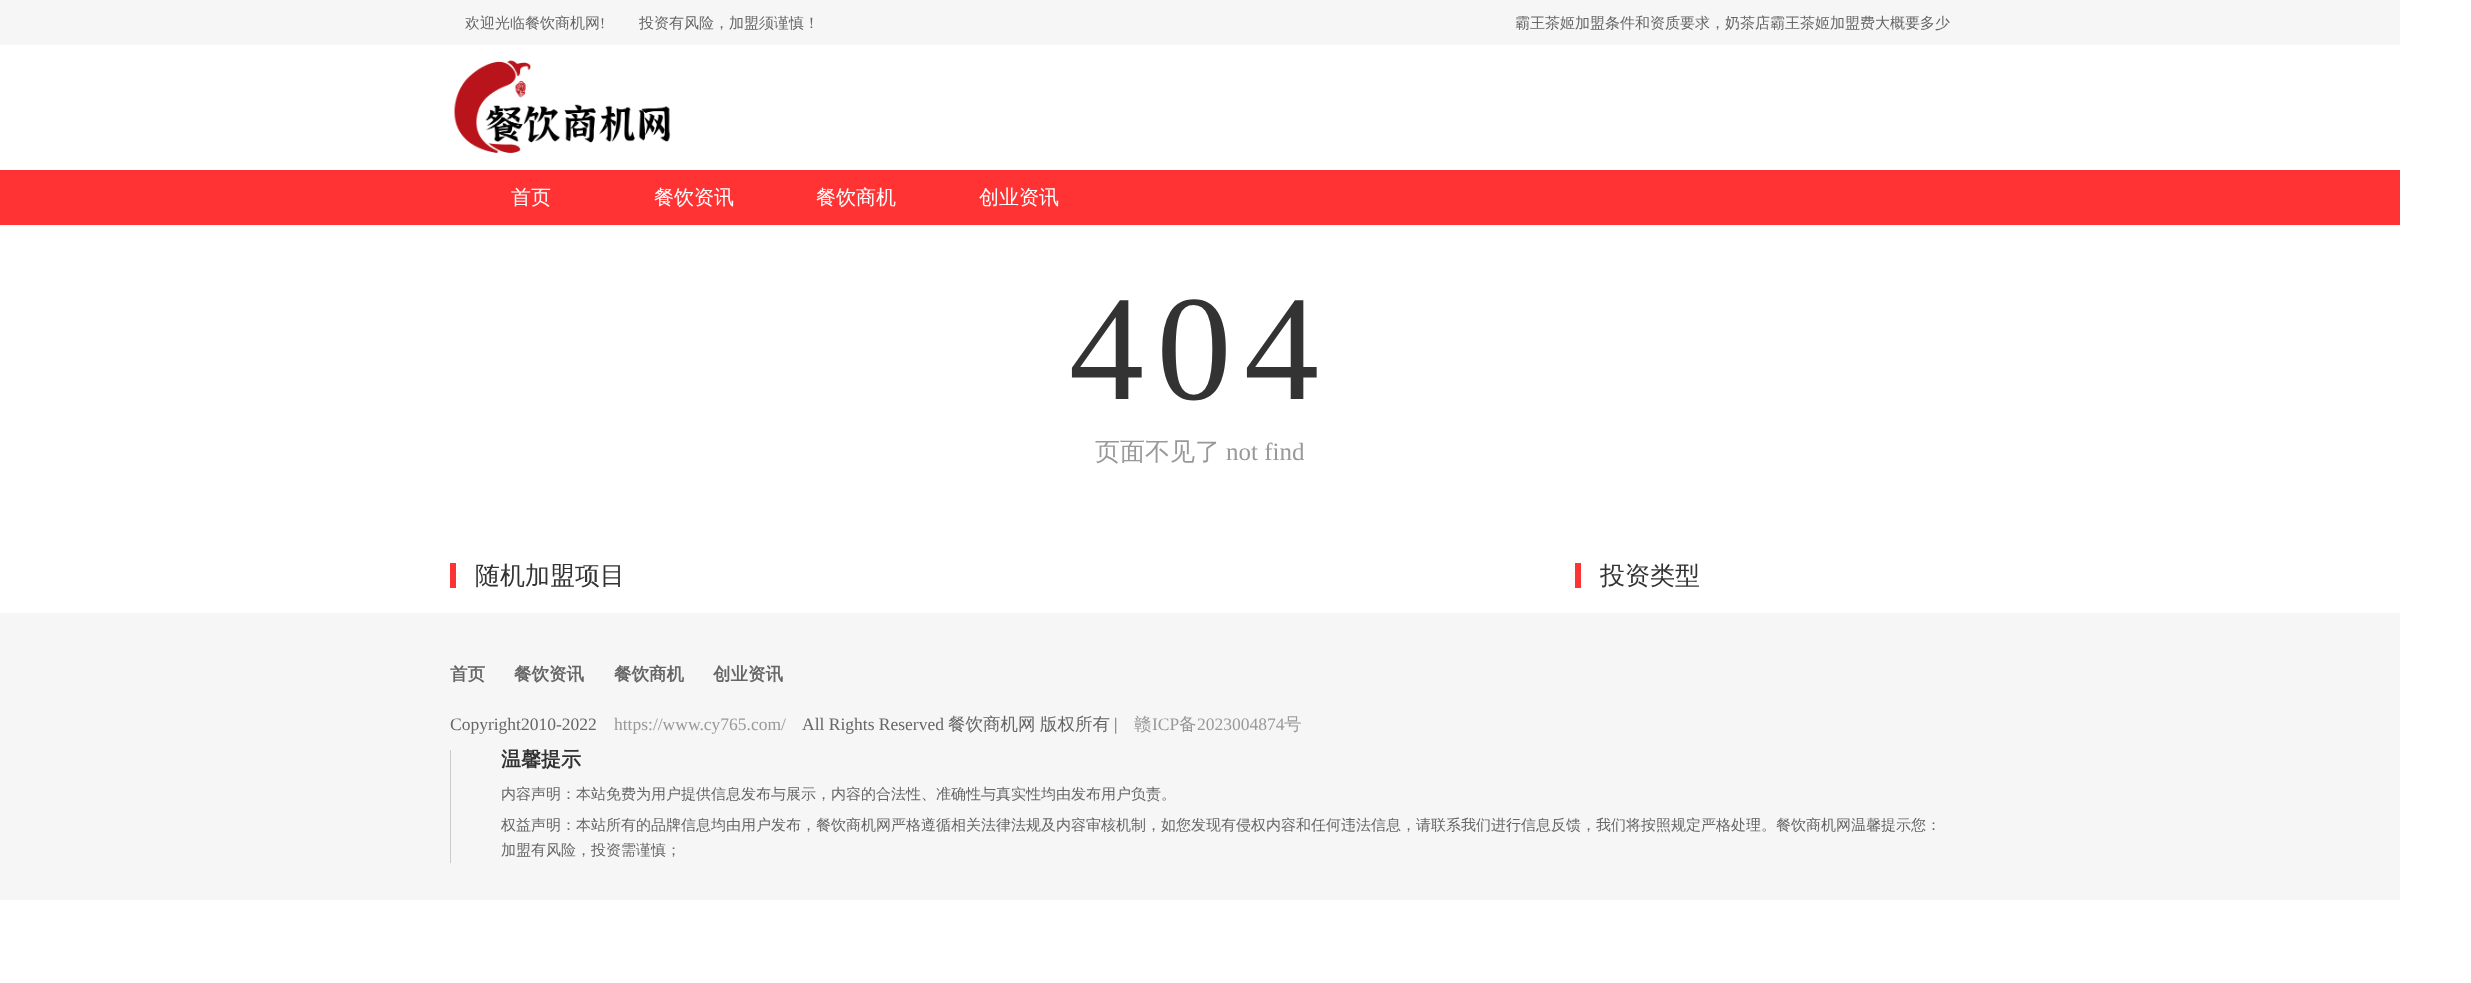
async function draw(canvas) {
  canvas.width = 2471
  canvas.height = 983
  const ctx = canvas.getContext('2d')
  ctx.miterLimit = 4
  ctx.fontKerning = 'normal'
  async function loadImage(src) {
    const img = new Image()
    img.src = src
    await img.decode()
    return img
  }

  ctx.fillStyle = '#fff'
  ctx.fillRect(0, 0, 2471, 983)
  ctx.fillStyle = '#f6f6f6'
  ctx.fillRect(0, 0, 2400, 45)
  ctx.font = '500 15px WenQuanYi Zen Hei'
  ctx.fillStyle = '#666'
  ctx.fillText('欢迎光临餐饮商机网', 465, 28)
  ctx.font = '15px Liberation Serif'
  ctx.fillText('!', 600, 28)
  ctx.font = '500 15px WenQuanYi Zen Hei'
  ctx.fillText('投资有风险，加盟须谨慎！', 639, 28)
  ctx.fillText('霸王茶姬加盟条件和资质要求，奶茶店霸王茶姬加盟费大概要多少', 1515, 28)
  ctx.drawImage(await loadImage('image0.png'), 454, 60, 217, 93)
  ctx.fillStyle = '#f33'
  ctx.fillRect(0, 170, 2400, 55)
  ctx.font = '500 20px WenQuanYi Zen Hei'
  ctx.fillStyle = '#fff'
  ctx.fillText('首页', 511, 204)
  ctx.fillText('餐饮资讯', 654, 204)
  ctx.fillText('餐饮商机', 816, 204)
  ctx.fillText('创业资讯', 979, 204)
  ctx.letterSpacing = '12.5px'
  ctx.font = '150px Liberation Serif'
  ctx.fillStyle = '#333'
  ctx.fillText('404', 1069, 399)
  ctx.letterSpacing = '0px'
  ctx.font = '500 25px WenQuanYi Zen Hei'
  ctx.fillStyle = '#999'
  ctx.fillText('页面不见了', 1095, 460)
  ctx.font = '25px Liberation Serif'
  ctx.fillText('not find', 1226, 460)
  ctx.fillStyle = '#f33'
  ctx.fillRect(450, 563, 6, 25)
  ctx.font = '500 25px WenQuanYi Zen Hei'
  ctx.fillStyle = '#333'
  ctx.fillText('随机加盟项目', 475, 584)
  ctx.fillStyle = '#f33'
  ctx.fillRect(1575, 563, 6, 25)
  ctx.fillStyle = '#333'
  ctx.fillText('投资类型', 1600, 584)
  ctx.fillStyle = '#f6f6f6'
  ctx.fillRect(0, 613, 2400, 287)
  ctx.font = 'bold 17.5px WenQuanYi Zen Hei'
  ctx.fillStyle = '#666'
  ctx.fillText('首页', 450, 680)
  ctx.fillText('餐饮资讯', 514, 680)
  ctx.fillText('餐饮商机', 614, 680)
  ctx.fillText('创业资讯', 713, 680)
  ctx.font = '17.5px Liberation Serif'
  ctx.fillText('Copyright2010-2022', 450, 730)
  ctx.fillStyle = '#999'
  ctx.fillText('https://www.cy765.com/', 614, 730)
  ctx.fillStyle = '#666'
  ctx.fillText('All Rights Reserved', 802, 730)
  ctx.font = '500 17.5px WenQuanYi Zen Hei'
  ctx.fillText('餐饮商机网', 948, 730)
  ctx.fillText('版权所有', 1040, 730)
  ctx.font = '17.5px Liberation Serif'
  ctx.fillText('|', 1114, 730)
  ctx.font = '500 17.5px WenQuanYi Zen Hei'
  ctx.fillStyle = '#999'
  ctx.fillText('赣', 1134, 730)
  ctx.font = '17.5px Liberation Serif'
  ctx.fillText('ICP', 1152, 730)
  ctx.font = '500 17.5px WenQuanYi Zen Hei'
  ctx.fillText('备', 1179, 730)
  ctx.font = '17.5px Liberation Serif'
  ctx.fillText('2023004874', 1197, 730)
  ctx.font = '500 17.5px WenQuanYi Zen Hei'
  ctx.fillText('号', 1284, 730)
  ctx.fillStyle = '#ccc'
  ctx.fillRect(450, 750, 1, 113)
  ctx.font = 'bold 20px WenQuanYi Zen Hei'
  ctx.fillStyle = '#333'
  ctx.fillText('温馨提示', 501, 766)
  ctx.font = '500 15px WenQuanYi Zen Hei'
  ctx.fillStyle = '#666'
  ctx.fillText('内容声明：本站免费为用户提供信息发布与展示，内容的合法性、准确性与真实性均由发布用户负责。', 501, 799)
  ctx.fillText('权益声明：本站所有的品牌信息均由用户发布，餐饮商机网严格遵循相关法律法规及内容审核机制，如您发现有侵权内容和任何违法信息，请联系我们进行信息反馈，我们将按照规定严格处理。餐饮商机网温馨提示您：', 501, 830)
  ctx.fillText('加盟有风险，投资需谨慎；', 501, 855)
}

draw(document.querySelector('canvas'))
